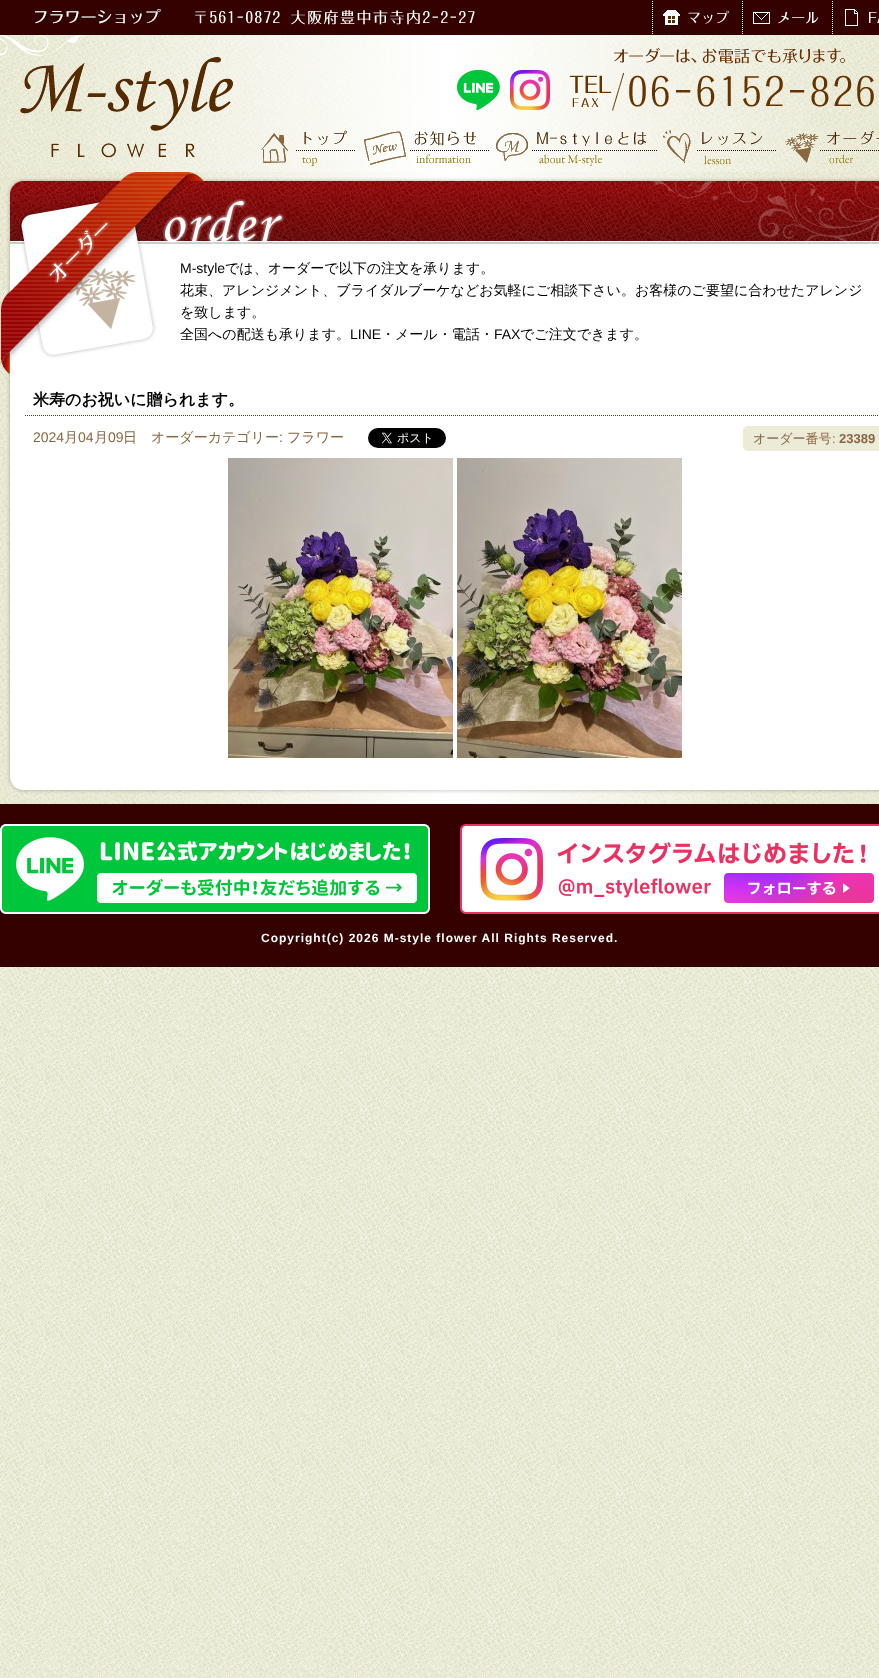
async function draw(canvas) {
  canvas.width = 879
  canvas.height = 1678
  const ctx = canvas.getContext('2d')
  ctx.miterLimit = 4
  ctx.fontKerning = 'normal'
  async function loadImage(src) {
    const img = new Image()
    img.src = src
    await img.decode()
    return img
  }

  ctx.fillStyle = '#fff'
  ctx.fillRect(0, 0, 879, 1678)
  ctx.drawImage(await loadImage('image0.png'), 0, 967, 879, 711)
  ctx.drawImage(await loadImage('image1.png'), 0, 35, 879, 137)
  ctx.fillStyle = '#350000'
  ctx.fillRect(0, 0, 879, 35)
  ctx.drawImage(await loadImage('image2.png'), 35, 9, 126, 15)
  ctx.drawImage(await loadImage('image3.png'), 195, 10, 280, 15)
  ctx.drawImage(await loadImage('image4.png'), 652, 1, 77, 33)
  ctx.drawImage(await loadImage('image5.png'), 742, 1, 77, 33)
  ctx.drawImage(await loadImage('image6.png'), 832, 1, 47, 33)
  ctx.drawImage(await loadImage('image7.png'), 20, 57, 213, 101)
  ctx.drawImage(await loadImage('image8.png'), 457, 70, 43, 40)
  ctx.drawImage(await loadImage('image9.png'), 510, 70, 40, 40)
  ctx.drawImage(await loadImage('image10.png'), 614, 48, 231, 16)
  ctx.drawImage(await loadImage('image11.png'), 569, 73, 305, 38)
  ctx.drawImage(await loadImage('image12.png'), 261, 130, 94, 36)
  ctx.drawImage(await loadImage('image13.png'), 364, 131, 125, 34)
  ctx.drawImage(await loadImage('image14.png'), 496, 132, 161, 34)
  ctx.drawImage(await loadImage('image15.png'), 663, 130, 113, 35)
  ctx.drawImage(await loadImage('image16.png'), 785, 131, 94, 33)
  ctx.drawImage(await loadImage('image17.png'), 0, 35, 87, 21)
  ctx.drawImage(await loadImage('image18.png'), 0, 374, 879, 302)
  ctx.drawImage(await loadImage('image19.png'), 0, 172, 879, 202)
  ctx.font = '14px Liberation Sans'
  ctx.fillStyle = '#000'
  ctx.fillText('M-style', 180, 273)
  ctx.font = '500 14px WenQuanYi Zen Hei'
  ctx.fillText('では、オーダーで以下の注文を承ります。', 225, 273)
  ctx.fillText('花束、アレンジメント、ブライダルブーケなどお気軽にご相談下さい。お客様のご要望に合わせたアレンジ', 180, 295)
  ctx.fillText('を致します。', 180, 317)
  ctx.fillText('全国への配送も承ります。', 180, 339)
  ctx.font = '14px Liberation Sans'
  ctx.fillText('LINE', 350, 339)
  ctx.font = '500 14px WenQuanYi Zen Hei'
  ctx.fillText('・メール・電話・', 381, 339)
  ctx.font = '14px Liberation Sans'
  ctx.fillText('FAX', 494, 339)
  ctx.font = '500 14px WenQuanYi Zen Hei'
  ctx.fillText('でご注文できます。', 520, 339)
  ctx.drawImage(await loadImage('image20.png'), 0, 676, 879, 128)
  ctx.drawImage(await loadImage('image21.png'), 25, 415, 853, 1)
  ctx.font = 'bold 16px WenQuanYi Zen Hei'
  ctx.fillText('米寿のお祝いに贈られます。', 33, 405)
  ctx.font = '14px Liberation Sans'
  ctx.fillStyle = '#864'
  ctx.fillText('2024', 33, 442)
  ctx.font = '500 14px WenQuanYi Zen Hei'
  ctx.fillText('月', 64, 442)
  ctx.font = '14px Liberation Sans'
  ctx.fillText('04', 78, 442)
  ctx.font = '500 14px WenQuanYi Zen Hei'
  ctx.fillText('月', 94, 442)
  ctx.font = '14px Liberation Sans'
  ctx.fillText('09', 108, 442)
  ctx.font = '500 14px WenQuanYi Zen Hei'
  ctx.fillText('日', 123, 442)
  ctx.fillText('オーダーカテゴリー', 151, 442)
  ctx.font = '14px Liberation Sans'
  ctx.fillText(':', 279, 442)
  ctx.font = '500 14px WenQuanYi Zen Hei'
  ctx.fillText('フラワー', 287, 442)
  ctx.drawImage(await loadImage('image22.png'), 368, 428, 78, 20)
  ctx.fillStyle = '#ecebd7'
  ctx.beginPath()
  ctx.roundRect(743, 426, 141, 25, 5)
  ctx.fill()
  ctx.font = '500 13px WenQuanYi Zen Hei'
  ctx.fillStyle = '#864'
  ctx.fillText('オーダー番号', 753, 443)
  ctx.font = '13px Liberation Sans'
  ctx.fillText(':', 832, 443)
  ctx.font = 'bold 13px Liberation Sans'
  ctx.fillText('23389', 839, 443)
  ctx.drawImage(await loadImage('image23.png'), 228, 458, 225, 300)
  ctx.drawImage(await loadImage('image24.png'), 457, 458, 225, 300)
  ctx.fillStyle = '#350000'
  ctx.fillRect(0, 804, 879, 163)
  ctx.drawImage(await loadImage('image25.png'), 0, 824, 430, 90)
  ctx.drawImage(await loadImage('image26.png'), 460, 824, 419, 90)
  ctx.letterSpacing = '1px'
  ctx.font = 'bold 12px Liberation Sans'
  ctx.fillStyle = '#fff'
  ctx.fillText('Copyright(c) 2026 M-style flower All Rights Reserved.', 261, 942)
}

draw(document.querySelector('canvas'))
